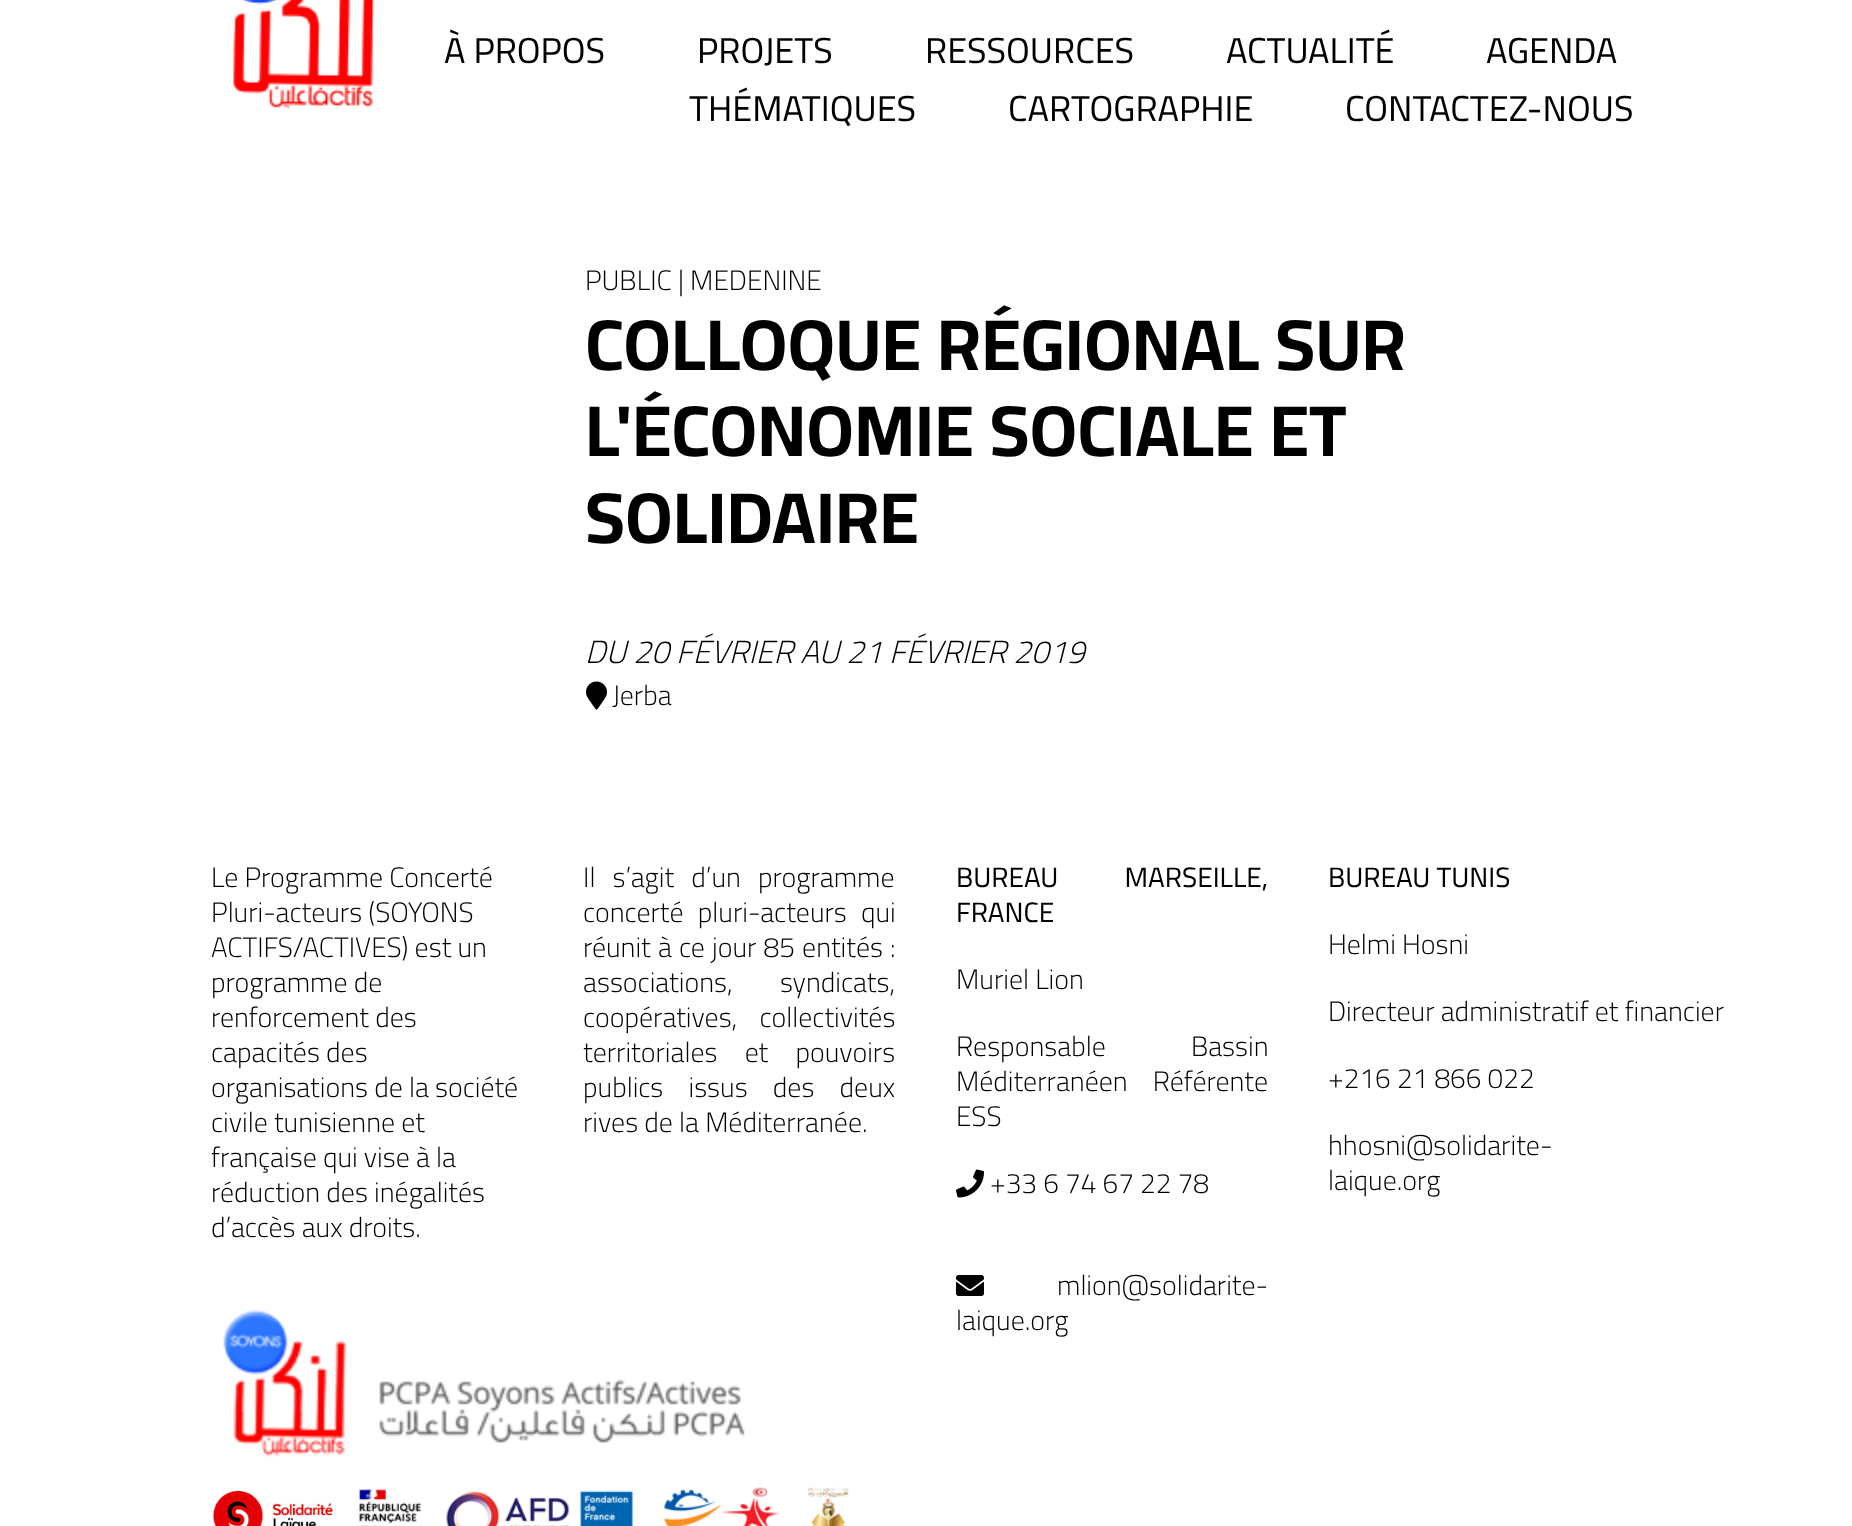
async function draw(canvas) {
  canvas.width = 1852
  canvas.height = 1526
  const ctx = canvas.getContext('2d')
  ctx.miterLimit = 4
  ctx.fontKerning = 'normal'
  async function loadImage(src) {
    const img = new Image()
    img.src = src
    await img.decode()
    return img
  }

  ctx.fillStyle = '#fff'
  ctx.fillRect(0, 0, 1852, 1526)
  ctx.drawImage(await loadImage('image0.png'), 233, 0, 142, 109)
  ctx.font = '36px Cairo'
  ctx.fillStyle = '#000'
  ctx.fillText('À PROPOS', 444, 63)
  ctx.fillText('PROJETS', 697, 63)
  ctx.fillText('RESSOURCES', 925, 63)
  ctx.fillText('ACTUALITÉ', 1226, 63)
  ctx.fillText('AGENDA', 1486, 63)
  ctx.fillText('THÉMATIQUES', 689, 121)
  ctx.fillText('CARTOGRAPHIE', 1008, 121)
  ctx.fillText('CONTACTEZ-NOUS', 1345, 121)
  ctx.font = '300 28px Cairo'
  ctx.fillText('PUBLIC | MEDENINE', 585, 290)
  ctx.font = 'bold 72px Cairo'
  ctx.fillText('COLLOQUE RÉGIONAL SUR', 585, 370)
  ctx.fillText('L\'ÉCONOMIE SOCIALE ET', 585, 456)
  ctx.fillText('SOLIDAIRE', 585, 543)
  ctx.font = 'italic 300 32px Cairo'
  ctx.fillText('DU 20 FÉVRIER AU 21 FÉVRIER 2019', 585, 663)
  ctx.drawImage(await loadImage('image1.png'), 586, 681, 21, 29)
  ctx.font = '300 28px Cairo'
  ctx.fillText('Jerba', 612, 705)
  ctx.fillText('Le Programme Concerté', 211, 887)
  ctx.fillText('Pluri-acteurs (SOYONS', 211, 922)
  ctx.fillText('ACTIFS/ACTIVES) est un', 211, 957)
  ctx.fillText('programme de', 211, 992)
  ctx.fillText('renforcement des', 211, 1027)
  ctx.fillText('capacités des', 211, 1062)
  ctx.fillText('organisations de la société', 211, 1097)
  ctx.fillText('civile tunisienne et', 211, 1132)
  ctx.fillText('française qui vise à la', 211, 1167)
  ctx.fillText('réduction des inégalités', 211, 1202)
  ctx.fillText('d’accès aux droits.', 211, 1237)
  ctx.wordSpacing = '11px'
  ctx.fillText('Il s’agit d’un programme', 583, 887)
  ctx.wordSpacing = '8px'
  ctx.fillText('concerté pluri-acteurs qui', 583, 922)
  ctx.wordSpacing = '1px'
  ctx.fillText('réunit à ce jour 85 entités :', 583, 957)
  ctx.wordSpacing = '41px'
  ctx.fillText('associations, syndicats,', 583, 992)
  ctx.wordSpacing = '16px'
  ctx.fillText('coopératives, collectivités', 583, 1027)
  ctx.wordSpacing = '21px'
  ctx.fillText('territoriales et pouvoirs', 583, 1062)
  ctx.wordSpacing = '19px'
  ctx.fillText('publics issus des deux', 583, 1097)
  ctx.wordSpacing = '0px'
  ctx.fillText('rives de la Méditerranée.', 583, 1132)
  ctx.drawImage(await loadImage('image2.png'), 223, 1309, 522, 148)
  ctx.drawImage(await loadImage('image3.png'), 212, 1490, 121, 36)
  ctx.drawImage(await loadImage('image4.png'), 359, 1488, 63, 38)
  ctx.drawImage(await loadImage('image5.png'), 446, 1490, 188, 36)
  ctx.drawImage(await loadImage('image6.png'), 664, 1487, 116, 39)
  ctx.drawImage(await loadImage('image7.png'), 807, 1487, 42, 39)
  ctx.wordSpacing = '60px'
  ctx.font = '28px Cairo'
  ctx.fillText('BUREAU MARSEILLE,', 956, 887)
  ctx.wordSpacing = '0px'
  ctx.fillText('FRANCE', 956, 922)
  ctx.font = '300 28px Cairo'
  ctx.fillText('Muriel Lion', 956, 989)
  ctx.wordSpacing = '79px'
  ctx.fillText('Responsable Bassin', 956, 1056)
  ctx.wordSpacing = '19px'
  ctx.fillText('Méditerranéen Référente', 956, 1091)
  ctx.wordSpacing = '0px'
  ctx.fillText('ESS', 956, 1126)
  ctx.drawImage(await loadImage('image8.png'), 956, 1169, 28, 29)
  ctx.fillText('+33 6 74 67 22 78', 990, 1193)
  ctx.drawImage(await loadImage('image9.png'), 956, 1275, 28, 21)
  ctx.fillText('mlion@solidarite-', 1057, 1295)
  ctx.fillText('laique.org', 956, 1330)
  ctx.font = '28px Cairo'
  ctx.fillText('BUREAU TUNIS', 1328, 887)
  ctx.font = '300 28px Cairo'
  ctx.fillText('Helmi Hosni', 1328, 954)
  ctx.fillText('Directeur administratif et financier', 1328, 1021)
  ctx.fillText('+216 21 866 022', 1328, 1088)
  ctx.fillText('hhosni@solidarite-', 1328, 1155)
  ctx.fillText('laique.org', 1328, 1190)
}

draw(document.querySelector('canvas'))
